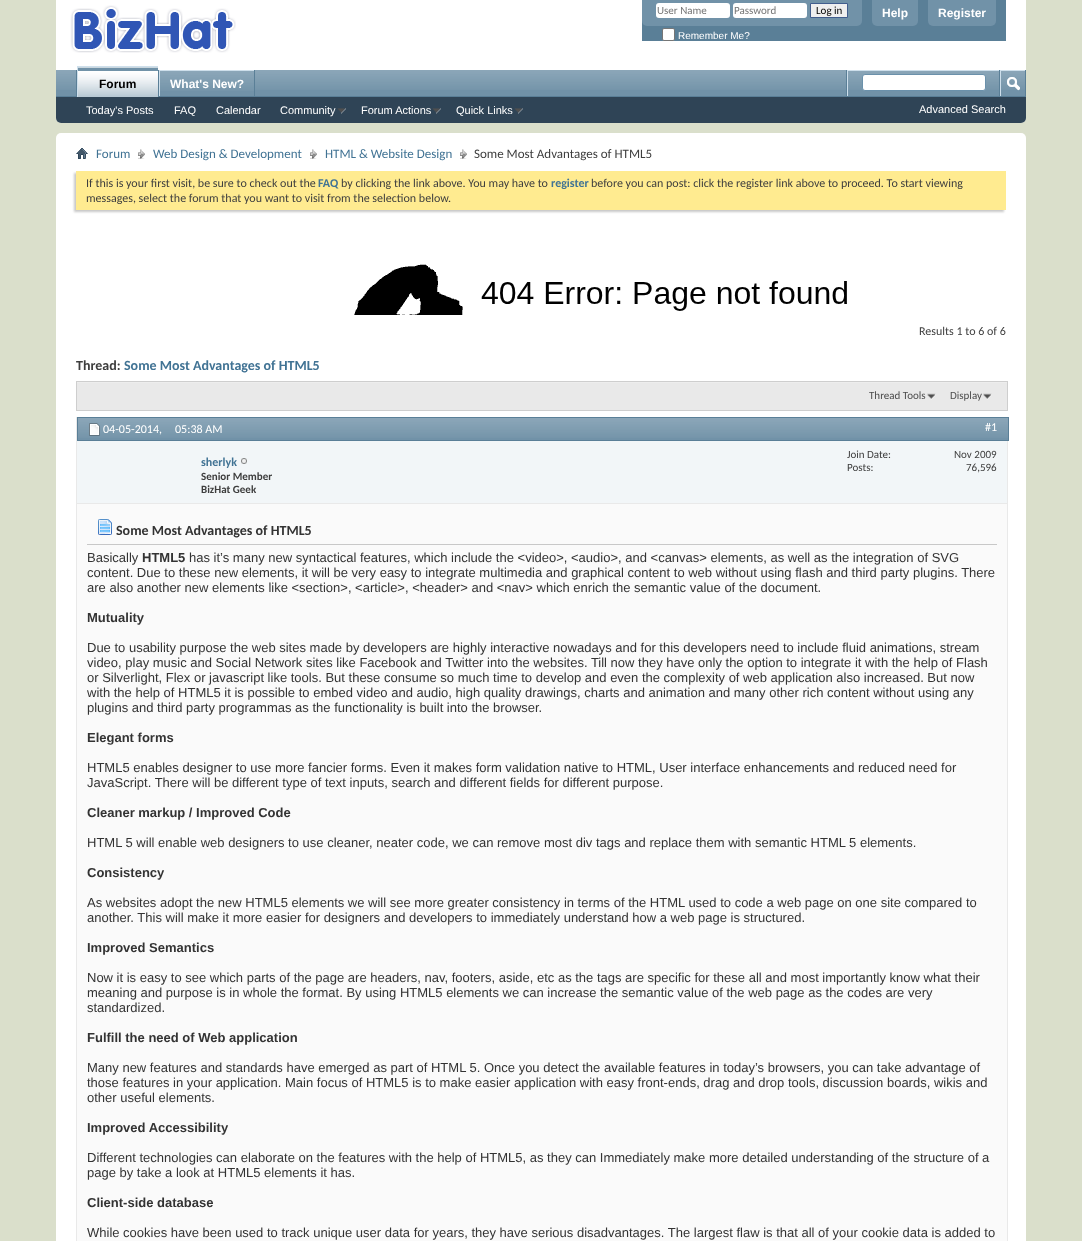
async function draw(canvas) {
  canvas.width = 1082
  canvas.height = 1241
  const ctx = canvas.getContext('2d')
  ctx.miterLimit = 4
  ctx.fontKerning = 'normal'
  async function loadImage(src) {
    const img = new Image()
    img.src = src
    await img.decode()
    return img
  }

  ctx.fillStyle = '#dadfcb'
  ctx.fillRect(0, 0, 1082, 1241)
  ctx.fillStyle = '#fff'
  ctx.beginPath()
  ctx.roundRect(56, 0, 970, 123, [0, 0, 5, 5])
  ctx.fill()
  ctx.drawImage(await loadImage('image0.png'), 70, 5, 166, 48)
  ctx.fillStyle = '#5a7f97'
  ctx.fillRect(642, 0, 364, 41)
  ctx.fillStyle = '#7192a8'
  ctx.beginPath()
  ctx.roundRect(642, 0, 220, 26, [0, 0, 5, 5])
  ctx.fill()
  ctx.fillStyle = '#fff'
  ctx.beginPath()
  ctx.roundRect(656, 3, 74, 15, 3)
  ctx.fill()
  ctx.font = '11px Carlito'
  ctx.fillStyle = '#777'
  ctx.fillText('User Name', 657, 14)
  ctx.fillStyle = '#fff'
  ctx.beginPath()
  ctx.roundRect(733, 3, 74, 15, 3)
  ctx.fill()
  ctx.fillStyle = '#777'
  ctx.fillText('Password', 734, 14)
  ctx.fillStyle = '#efefef'
  ctx.beginPath()
  ctx.rect(810.5, 3.5, 37, 14)
  ctx.fill()
  ctx.strokeStyle = '#415d8d'
  ctx.stroke()
  ctx.fillStyle = '#000'
  ctx.fillText('Log in', 816, 14)
  ctx.fillStyle = '#fff'
  ctx.beginPath()
  ctx.roundRect(662.5, 28.5, 12, 12, 1.5)
  ctx.fill()
  ctx.strokeStyle = '#767676'
  ctx.stroke()
  ctx.font = '10px Liberation Sans'
  ctx.fillText('Remember Me?', 678, 39)
  ctx.fillStyle = '#7192a8'
  ctx.beginPath()
  ctx.roundRect(872, 0, 46, 26, [0, 0, 5, 5])
  ctx.fill()
  ctx.font = 'bold 12px Liberation Sans'
  ctx.fillStyle = '#fff'
  ctx.fillText('Help', 882, 17)
  ctx.fillStyle = '#7192a8'
  ctx.beginPath()
  ctx.roundRect(928, 0, 68, 26, [0, 0, 5, 5])
  ctx.fill()
  ctx.fillStyle = '#fff'
  ctx.fillText('Register', 938, 17)
  ctx.fillStyle = '#2f4456'
  ctx.beginPath()
  ctx.roundRect(56, 70, 970, 53, [0, 0, 5, 5])
  ctx.fill()
  ctx.fillStyle = '#7192a8'
  ctx.fillRect(56, 70, 969, 26)
  ctx.drawImage(await loadImage('image1.png'), 56, 70, 969, 20)
  ctx.fillStyle = '#5a7f97'
  ctx.fillRect(158, 70, 1, 26)
  ctx.fillRect(76, 70, 1, 26)
  ctx.fillRect(254, 70, 1, 27)
  ctx.fillStyle = '#cedfeb'
  ctx.fillRect(159, 70, 95, 1)
  ctx.fillRect(159, 70, 1, 27)
  ctx.fillStyle = '#5a7f97'
  ctx.fillRect(56, 96, 970, 1)
  ctx.fillStyle = '#7192a8'
  ctx.fillRect(78, 67, 80, 30)
  ctx.drawImage(await loadImage('image2.png'), 78, 67, 80, 30)
  ctx.fillStyle = '#cedfeb'
  ctx.fillRect(77, 66, 81, 1)
  ctx.fillRect(77, 66, 1, 31)
  ctx.fillStyle = '#000'
  ctx.fillText('Forum', 99, 88)
  ctx.font = '11px Liberation Sans'
  ctx.fillStyle = '#fff'
  ctx.fillText('Today\'s Posts', 86, 114)
  ctx.fillText('FAQ', 174, 114)
  ctx.fillText('Calendar', 216, 114)
  ctx.fillText('Community', 280, 114)
  ctx.drawImage(await loadImage('image3.png'), 337, 108, 9, 6)
  ctx.fillText('Forum Actions', 361, 114)
  ctx.drawImage(await loadImage('image3.png'), 432, 108, 9, 6)
  ctx.fillText('Quick Links', 456, 114)
  ctx.drawImage(await loadImage('image3.png'), 514, 108, 9, 6)
  ctx.fillStyle = '#7192a8'
  ctx.fillRect(160, 71, 94, 19)
  ctx.drawImage(await loadImage('image4.png'), 160, 71, 94, 20)
  ctx.font = 'bold 12px Liberation Sans'
  ctx.fillStyle = '#fff'
  ctx.fillText('What\'s New?', 170, 88)
  ctx.fillStyle = '#5a7f97'
  ctx.fillRect(846, 70, 1, 26)
  ctx.fillStyle = '#cedfeb'
  ctx.fillRect(847, 70, 152, 1)
  ctx.fillRect(847, 70, 1, 26)
  ctx.fillStyle = '#fff'
  ctx.beginPath()
  ctx.roundRect(862.5, 74.5, 123, 16, 2.5)
  ctx.fill()
  ctx.strokeStyle = '#6b91ab'
  ctx.stroke()
  ctx.fillStyle = '#5a7f97'
  ctx.fillRect(1025, 70, 1, 26)
  ctx.fillRect(999, 70, 1, 26)
  ctx.fillStyle = '#cedfeb'
  ctx.fillRect(1000, 70, 25, 1)
  ctx.fillRect(1000, 70, 1, 26)
  ctx.drawImage(await loadImage('image5.png'), 1007, 77, 13, 14)
  ctx.font = '11px Liberation Sans'
  ctx.fillStyle = '#fff'
  ctx.fillText('Advanced Search', 919, 113)
  ctx.beginPath()
  ctx.roundRect(56, 133, 970, 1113, 5)
  ctx.fill()
  ctx.drawImage(await loadImage('image6.png'), 76, 148, 12, 11)
  ctx.drawImage(await loadImage('image7.png'), 138, 149, 7, 10)
  ctx.font = '13px Carlito'
  ctx.fillStyle = '#417394'
  ctx.fillText('Forum', 96, 158)
  ctx.drawImage(await loadImage('image7.png'), 310, 149, 7, 10)
  ctx.fillText('Web Design & Development', 153, 158)
  ctx.drawImage(await loadImage('image7.png'), 460, 149, 7, 10)
  ctx.fillText('HTML & Website Design', 325, 158)
  ctx.fillStyle = '#3e3e3e'
  ctx.fillText('Some Most Advantages of HTML5', 474, 158)
  ctx.fillStyle = '#c8c8c8'
  ctx.filter = 'blur(1px)'
  ctx.beginPath()
  ctx.rect(74, 173, 930, 39)
  ctx.fill()
  ctx.filter = 'none'
  ctx.fillStyle = '#ffeb90'
  ctx.fillRect(76, 171, 930, 39)
  ctx.font = '12px Carlito'
  ctx.fillStyle = '#3e3e3e'
  ctx.fillText('If this is your first visit, be sure to check out the', 86, 187)
  ctx.font = 'bold 12px Carlito'
  ctx.fillStyle = '#417394'
  ctx.fillText('FAQ', 318, 187)
  ctx.font = '12px Carlito'
  ctx.fillStyle = '#3e3e3e'
  ctx.fillText('by clicking the link above. You may have to', 341, 187)
  ctx.font = 'bold 12px Carlito'
  ctx.fillStyle = '#417394'
  ctx.fillText('register', 551, 187)
  ctx.font = '12px Carlito'
  ctx.fillStyle = '#3e3e3e'
  ctx.fillText('before you can post: click the register link above to proceed. To start viewing', 591, 187)
  ctx.fillText('messages, select the forum that you want to visit from the selection below.', 86, 202)
  ctx.drawImage(await loadImage('image8.png'), 354, 264, 493, 51)
  ctx.fillText('Results 1 to 6 of 6', 919, 335)
  ctx.font = 'bold 14px Carlito'
  ctx.fillText('Thread:', 76, 370)
  ctx.fillStyle = '#417394'
  ctx.fillText('Some Most Advantages of HTML5', 124, 370)
  ctx.fillStyle = '#e9e9e9'
  ctx.fillRect(77, 383, 930, 27)
  ctx.fillStyle = '#ededed'
  ctx.fillRect(76, 382, 932, 1)
  ctx.strokeStyle = '#cecece'
  ctx.strokeRect(76.5, 381.5, 931, 29)
  ctx.drawImage(await loadImage('image9.png'), 927, 393, 9, 7)
  ctx.font = '11px Carlito'
  ctx.fillStyle = '#4e4e4e'
  ctx.fillText('Thread Tools', 869, 399)
  ctx.drawImage(await loadImage('image9.png'), 983, 393, 9, 7)
  ctx.fillText('Display', 950, 399)
  ctx.strokeStyle = '#e9e9e9'
  ctx.strokeRect(76.5, 417.5, 931, 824)
  ctx.fillStyle = '#7192a8'
  ctx.fillRect(78, 418, 930, 22)
  ctx.drawImage(await loadImage('image10.png'), 78, 418, 930, 20)
  ctx.strokeStyle = '#5a7f97'
  ctx.strokeRect(77.5, 417.5, 931, 23)
  ctx.drawImage(await loadImage('image11.png'), 89, 423, 11, 13)
  ctx.font = '12px Carlito'
  ctx.fillStyle = '#fff'
  ctx.fillText('04-05-2014,', 103, 433)
  ctx.fillText('05:38 AM', 175, 433)
  ctx.fillText('#1', 985, 431)
  ctx.fillStyle = '#f2f6f8'
  ctx.fillRect(77, 441, 930, 62)
  ctx.fillStyle = '#e9e9e9'
  ctx.fillRect(77, 503, 930, 1)
  ctx.font = 'bold 12px Carlito'
  ctx.fillStyle = '#417394'
  ctx.fillText('sherlyk', 201, 466)
  ctx.drawImage(await loadImage('image12.png'), 241, 458, 6, 6)
  ctx.font = 'bold 11px Carlito'
  ctx.fillStyle = '#3e3e3e'
  ctx.fillText('Senior Member', 201, 480)
  ctx.fillText('BizHat Geek', 201, 493)
  ctx.font = '11px Carlito'
  ctx.fillText('Join Date:', 847, 458)
  ctx.fillText('Nov 2009', 954, 458)
  ctx.fillText('Posts:', 847, 471)
  ctx.fillText('76,596', 966, 471)
  ctx.fillStyle = '#fafafa'
  ctx.fillRect(77, 504, 930, 737)
  ctx.fillStyle = '#c8c8c8'
  ctx.fillRect(87, 544, 910, 1)
  ctx.drawImage(await loadImage('image13.png'), 98, 519, 14, 16)
  ctx.font = 'bold 14px Carlito'
  ctx.fillStyle = '#333'
  ctx.fillText('Some Most Advantages of HTML5', 116, 535)
  ctx.font = '13px Liberation Sans'
  ctx.fillText('Basically', 87, 562)
  ctx.font = 'bold 13px Liberation Sans'
  ctx.fillText('HTML5', 142, 562)
  ctx.font = '13px Liberation Sans'
  ctx.fillText('has it’s many new syntactical features, which include the <video>, <audio>, and <canvas> elements, as well as the integration of SVG', 189, 562)
  ctx.fillText('content. Due to these new elements, it will be very easy to integrate multimedia and graphical content to web without using flash and third party plugins. There', 87, 577)
  ctx.fillText('are also another new elements like <section>, <article>, <header> and <nav> which enrich the semantic value of the document.', 87, 592)
  ctx.font = 'bold 13px Liberation Sans'
  ctx.fillText('Mutuality', 87, 622)
  ctx.font = '13px Liberation Sans'
  ctx.fillText('Due to usability purpose the web sites made by developers are highly interactive nowadays and for this developers need to include fluid animations, stream', 87, 652)
  ctx.fillText('video, play music and Social Network sites like Facebook and Twitter into the websites. Till now they have only the option to integrate it with the help of Flash', 87, 667)
  ctx.fillText('or Silverlight, Flex or javascript like tools. But these consume so much time to develop and even the complexity of web application also increased. But now', 87, 682)
  ctx.fillText('with the help of HTML5 it is possible to embed video and audio, high quality drawings, charts and animation and many other rich content without using any', 87, 697)
  ctx.fillText('plugins and third party programmas as the functionality is built into the browser.', 87, 712)
  ctx.font = 'bold 13px Liberation Sans'
  ctx.fillText('Elegant forms', 87, 742)
  ctx.font = '13px Liberation Sans'
  ctx.fillText('HTML5 enables designer to use more fancier forms. Even it makes form validation native to HTML, User interface enhancements and reduced need for', 87, 772)
  ctx.fillText('JavaScript. There will be different type of text inputs, search and different fields for different purpose.', 87, 787)
  ctx.font = 'bold 13px Liberation Sans'
  ctx.fillText('Cleaner markup / Improved Code', 87, 817)
  ctx.font = '13px Liberation Sans'
  ctx.fillText('HTML 5 will enable web designers to use cleaner, neater code, we can remove most div tags and replace them with semantic HTML 5 elements.', 87, 847)
  ctx.font = 'bold 13px Liberation Sans'
  ctx.fillText('Consistency', 87, 877)
  ctx.font = '13px Liberation Sans'
  ctx.fillText('As websites adopt the new HTML5 elements we will see more greater consistency in terms of the HTML used to code a web page on one site compared to', 87, 907)
  ctx.fillText('another. This will make it more easier for designers and developers to immediately understand how a web page is structured.', 87, 922)
  ctx.font = 'bold 13px Liberation Sans'
  ctx.fillText('Improved Semantics', 87, 952)
  ctx.font = '13px Liberation Sans'
  ctx.fillText('Now it is easy to see which parts of the page are headers, nav, footers, aside, etc as the tags are specific for these all and most importantly know what their', 87, 982)
  ctx.fillText('meaning and purpose is in whole the format. By using HTML5 elements we can increase the semantic value of the web page as the codes are very', 87, 997)
  ctx.fillText('standardized.', 87, 1012)
  ctx.font = 'bold 13px Liberation Sans'
  ctx.fillText('Fulfill the need of Web application', 87, 1042)
  ctx.font = '13px Liberation Sans'
  ctx.fillText('Many new features and standards have emerged as part of HTML 5. Once you detect the available features in today’s browsers, you can take advantage of', 87, 1072)
  ctx.fillText('those features in your application. Main focus of HTML5 is to make easier application with easy front-ends, drag and drop tools, discussion boards, wikis and', 87, 1087)
  ctx.fillText('other useful elements.', 87, 1102)
  ctx.font = 'bold 13px Liberation Sans'
  ctx.fillText('Improved Accessibility', 87, 1132)
  ctx.font = '13px Liberation Sans'
  ctx.fillText('Different technologies can elaborate on the features with the help of HTML5, as they can Immediately make more detailed understanding of the structure of a', 87, 1162)
  ctx.fillText('page by take a look at HTML5 elements it has.', 87, 1177)
  ctx.font = 'bold 13px Liberation Sans'
  ctx.fillText('Client-side database', 87, 1207)
  ctx.font = '13px Liberation Sans'
  ctx.fillText('While cookies have been used to track unique user data for years, they have serious disadvantages. The largest flaw is that all of your cookie data is added to', 87, 1237)
}

draw(document.querySelector('canvas'))
